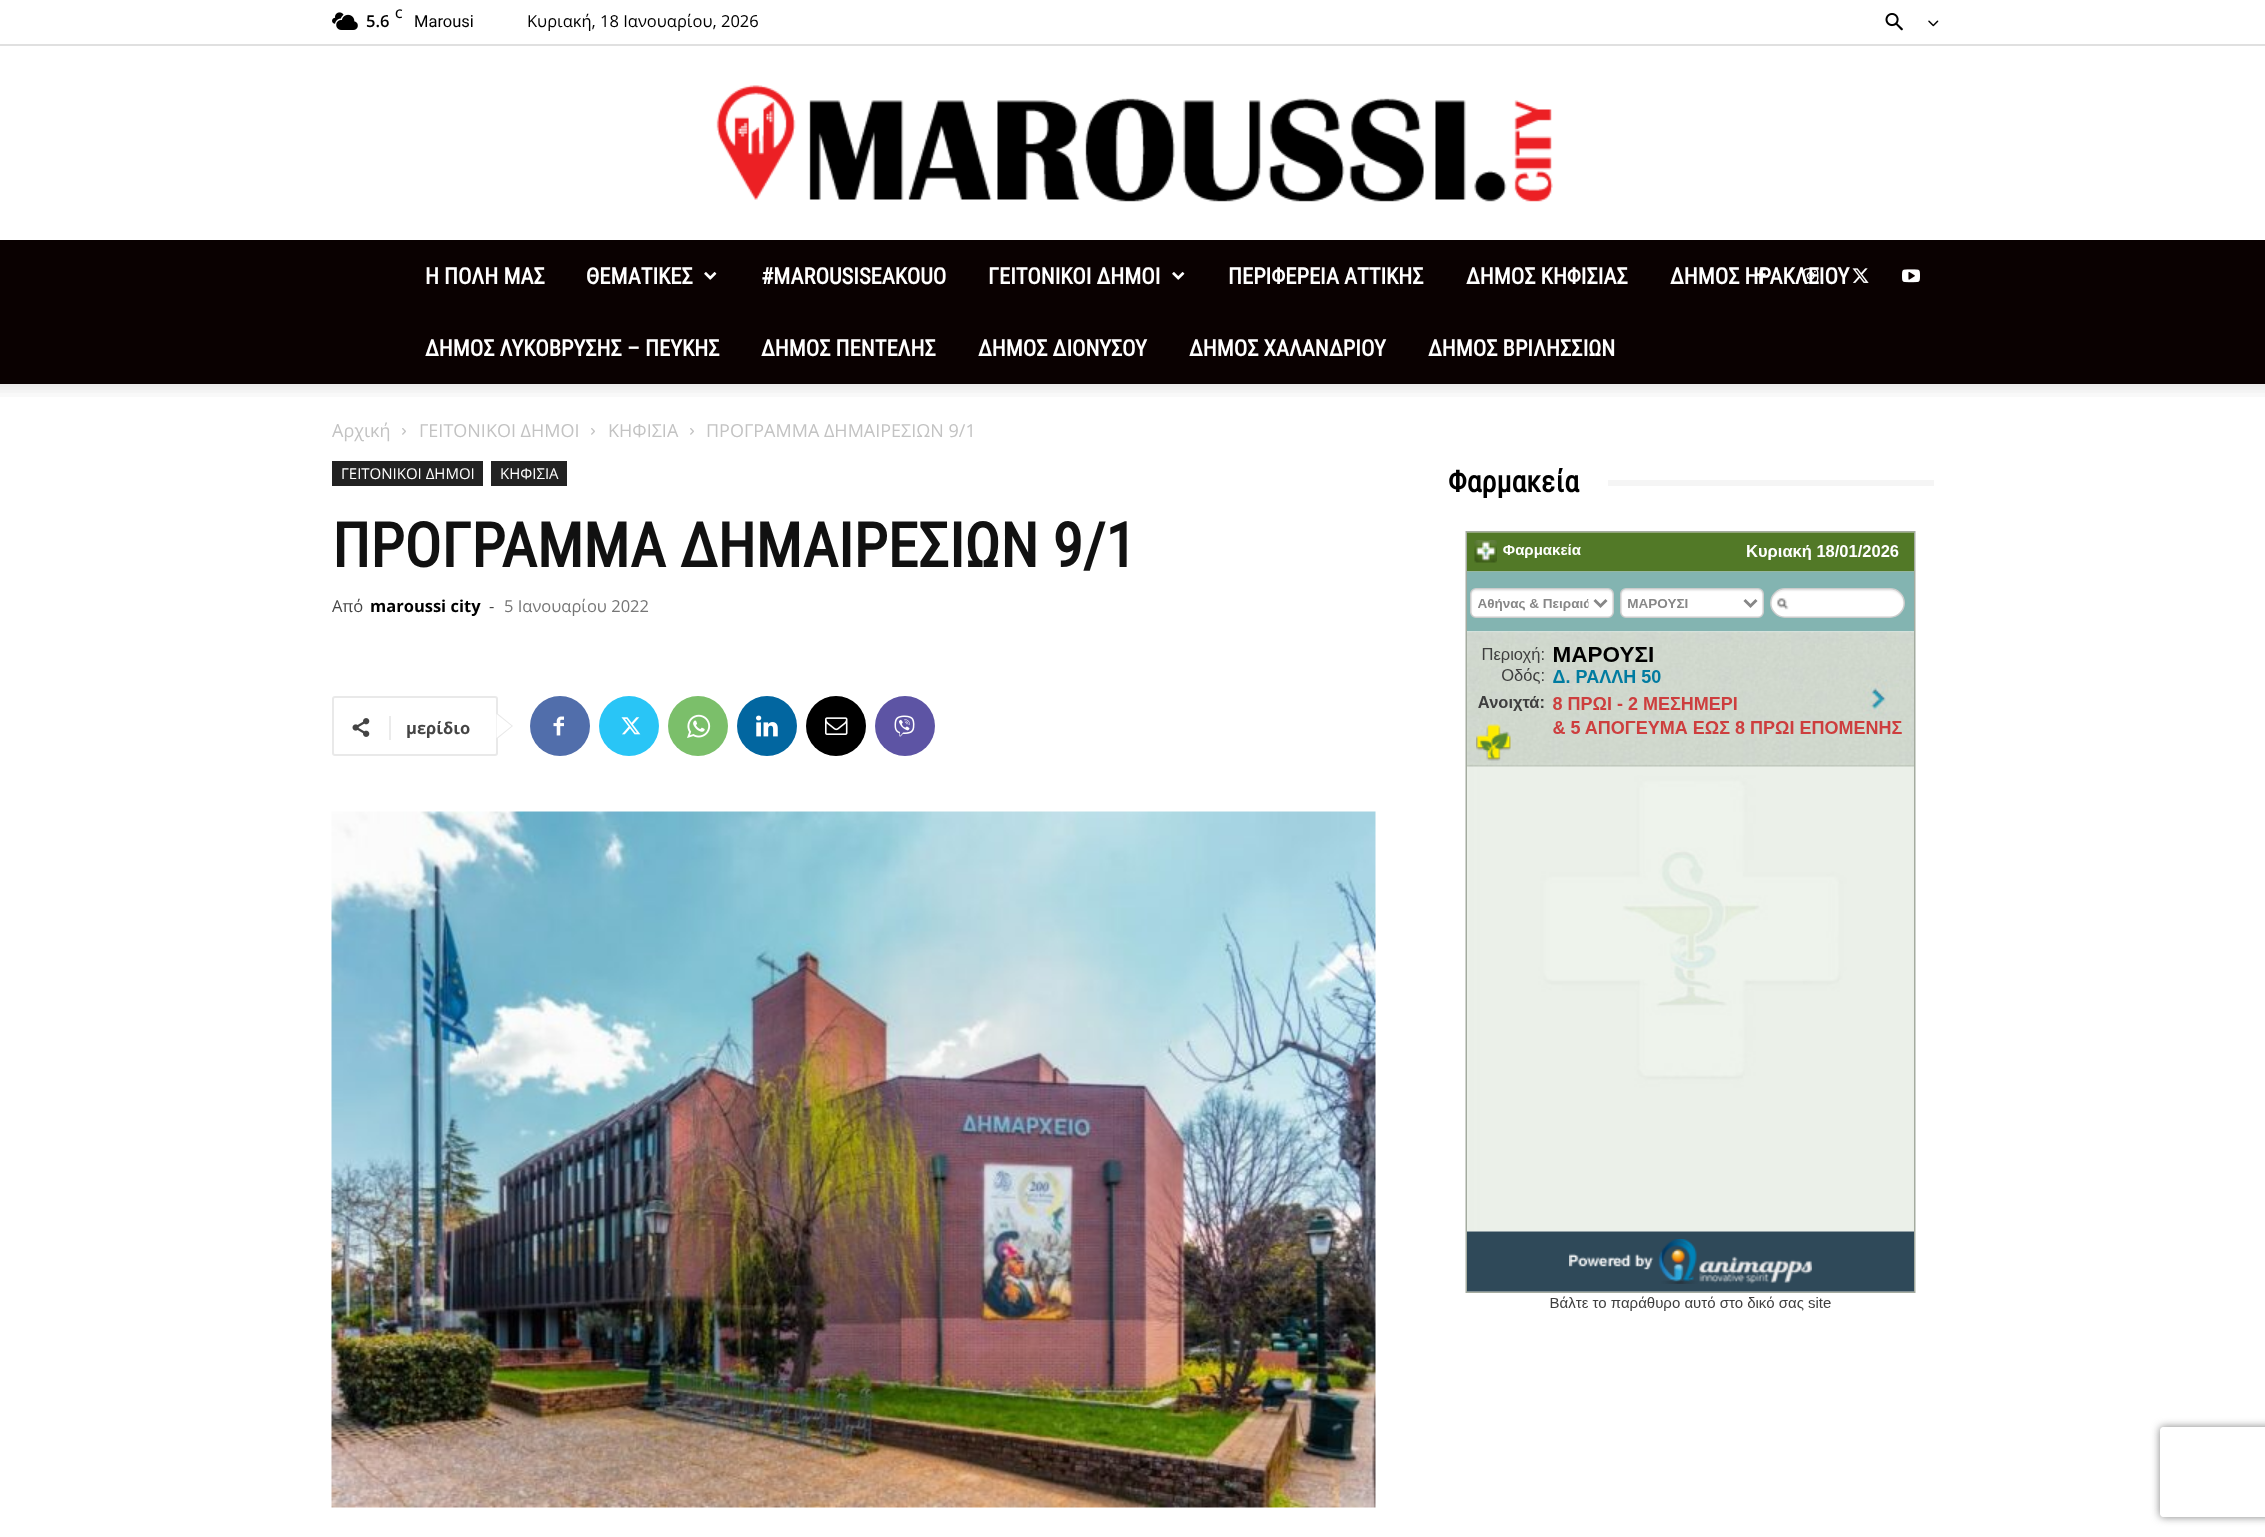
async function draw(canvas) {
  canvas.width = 2265
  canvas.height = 1537
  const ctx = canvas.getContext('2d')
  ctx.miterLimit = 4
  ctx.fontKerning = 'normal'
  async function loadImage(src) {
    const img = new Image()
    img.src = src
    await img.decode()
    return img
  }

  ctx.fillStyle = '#fff'
  ctx.fillRect(0, 0, 2265, 1537)
  ctx.fillStyle = '#e0e0e0'
  ctx.fillRect(0, 44, 2265, 2)
  ctx.drawImage(await loadImage('image0.png'), 332, 12, 26, 18)
  ctx.font = '600 12px Open Sans'
  ctx.fillStyle = '#000'
  ctx.fillText('C', 395, 18)
  ctx.font = '600 16.5px Open Sans'
  ctx.fillText('5.6', 366, 27)
  ctx.font = '16.5px Roboto'
  ctx.fillText('Marousi', 414, 27)
  ctx.font = '16.5px Open Sans'
  ctx.fillText('Κυριακή, 18 Ιανουαρίου, 2026', 527, 27)
  ctx.drawImage(await loadImage('image1.png'), 1885, 13, 18, 18)
  ctx.drawImage(await loadImage('image2.png'), 1928, 20, 11, 7)
  ctx.drawImage(await loadImage('image3.png'), 716, 85, 837, 117)
  ctx.fillStyle = '#0a0101'
  ctx.fillRect(0, 240, 2265, 144)
  ctx.font = 'bold 22.5px Roboto Condensed'
  ctx.fillStyle = '#fff'
  ctx.fillText('Η ΠΟΛΗ ΜΑΣ', 425, 284)
  ctx.fillText('ΘΕΜΑΤΙΚΕΣ', 586, 284)
  ctx.drawImage(await loadImage('image4.png'), 704, 272, 13, 8)
  ctx.fillText('#MAROUSISEAKOUO', 761, 284)
  ctx.fillText('ΓΕΙΤΟΝΙΚΟΙ ΔΗΜΟΙ', 988, 284)
  ctx.drawImage(await loadImage('image4.png'), 1172, 272, 13, 8)
  ctx.fillText('ΠΕΡΙΦΕΡΕΙΑ ΑΤΤΙΚΗΣ', 1228, 284)
  ctx.fillText('ΔΗΜΟΣ ΚΗΦΙΣΙΑΣ', 1466, 284)
  ctx.fillText('ΔΗΜΟΣ ΗΡΑΚΛΕΙΟΥ', 1670, 284)
  ctx.fillText('ΔΗΜΟΣ ΛΥΚΟΒΡΥΣΗΣ – ΠΕΥΚΗΣ', 425, 356)
  ctx.fillText('ΔΗΜΟΣ ΠΕΝΤΕΛΗΣ', 761, 356)
  ctx.fillText('ΔΗΜΟΣ ΔΙΟΝΥΣΟΥ', 978, 356)
  ctx.fillText('ΔΗΜΟΣ ΧΑΛΑΝΔΡΙΟΥ', 1189, 356)
  ctx.fillText('ΔΗΜΟΣ ΒΡΙΛΗΣΣΙΩΝ', 1428, 356)
  ctx.drawImage(await loadImage('image5.png'), 1756, 267, 10, 17)
  ctx.drawImage(await loadImage('image6.png'), 1803, 268, 16, 16)
  ctx.drawImage(await loadImage('image7.png'), 1852, 268, 17, 15)
  ctx.drawImage(await loadImage('image8.png'), 1902, 269, 18, 14)
  ctx.drawImage(await loadImage('image9.png'), 0, 384, 2265, 13)
  ctx.font = '18px Open Sans'
  ctx.fillStyle = '#c3c3c3'
  ctx.fillText('Αρχική', 332, 437)
  ctx.drawImage(await loadImage('image10.png'), 402, 428, 4, 7)
  ctx.fillText('ΓΕΙΤΟΝΙΚΟΙ ΔΗΜΟΙ', 419, 437)
  ctx.drawImage(await loadImage('image10.png'), 591, 428, 4, 7)
  ctx.fillText('ΚΗΦΙΣΙΑ', 608, 437)
  ctx.drawImage(await loadImage('image10.png'), 690, 428, 4, 7)
  ctx.fillText('ΠΡΟΓΡΑΜΜΑ ΔΗΜΑΙΡΕΣΙΩΝ 9/1', 706, 437)
  ctx.fillStyle = '#222'
  ctx.fillRect(332, 461, 151, 25)
  ctx.font = '15px Open Sans'
  ctx.fillStyle = '#fff'
  ctx.fillText('ΓΕΙΤΟΝΙΚΟΙ ΔΗΜΟΙ', 341, 479)
  ctx.fillStyle = '#222'
  ctx.fillRect(491, 461, 76, 25)
  ctx.fillStyle = '#fff'
  ctx.fillText('ΚΗΦΙΣΙΑ', 500, 479)
  ctx.font = 'bold 61.5px Roboto Condensed'
  ctx.fillStyle = '#111'
  ctx.fillText('ΠΡΟΓΡΑΜΜΑ ΔΗΜΑΙΡΕΣΙΩΝ 9/1', 332, 567)
  ctx.font = '16.5px Open Sans'
  ctx.fillStyle = '#444'
  ctx.fillText('Από', 332, 612)
  ctx.font = 'bold 16.5px Open Sans'
  ctx.fillStyle = '#000'
  ctx.fillText('maroussi city', 370, 612)
  ctx.font = '16.5px Open Sans'
  ctx.fillStyle = '#444'
  ctx.fillText('-', 489, 612)
  ctx.fillStyle = '#767676'
  ctx.fillText('5 Ιανουαρίου 2022', 504, 612)
  ctx.beginPath()
  ctx.roundRect(333, 697, 164, 58, 2)
  ctx.strokeStyle = '#e9e9e9'
  ctx.lineWidth = 2
  ctx.stroke()
  ctx.fillStyle = '#e9e9e9'
  ctx.beginPath()
  ctx.moveTo(496.5, 739.5)
  ctx.lineTo(496.5, 712.5)
  ctx.lineTo(513, 726)
  ctx.closePath()
  ctx.fill()
  ctx.drawImage(await loadImage('image11.png'), 352, 718, 18, 19)
  ctx.fillStyle = '#ebebeb'
  ctx.fillRect(389, 716, 2, 24)
  ctx.font = 'bold 16.5px Open Sans'
  ctx.fillStyle = '#444'
  ctx.fillText('μερίδιο', 406, 734)
  ctx.fillStyle = '#fff'
  ctx.beginPath()
  ctx.moveTo(496.5, 738)
  ctx.lineTo(496.5, 714)
  ctx.lineTo(511.5, 726)
  ctx.closePath()
  ctx.fill()
  ctx.fillStyle = '#516eab'
  ctx.beginPath()
  ctx.arc(560, 726, 30, 0, 2 * Math.PI)
  ctx.fill()
  ctx.drawImage(await loadImage('image12.png'), 553, 716, 11, 20)
  ctx.fillStyle = '#29c5f6'
  ctx.beginPath()
  ctx.arc(629, 726, 30, 0, 2 * Math.PI)
  ctx.fill()
  ctx.drawImage(await loadImage('image13.png'), 621, 717, 20, 18)
  ctx.fillStyle = '#7bbf6a'
  ctx.beginPath()
  ctx.arc(698, 726, 30, 0, 2 * Math.PI)
  ctx.fill()
  ctx.drawImage(await loadImage('image14.png'), 687, 714, 24, 24)
  ctx.fillStyle = '#0266a0'
  ctx.beginPath()
  ctx.arc(767, 726, 30, 0, 2 * Math.PI)
  ctx.fill()
  ctx.drawImage(await loadImage('image15.png'), 756, 715, 22, 22)
  ctx.fillStyle = '#000'
  ctx.beginPath()
  ctx.arc(836, 726, 30, 0, 2 * Math.PI)
  ctx.fill()
  ctx.drawImage(await loadImage('image16.png'), 825, 717, 23, 18)
  ctx.fillStyle = '#5d54a4'
  ctx.beginPath()
  ctx.arc(905, 726, 30, 0, 2 * Math.PI)
  ctx.fill()
  ctx.drawImage(await loadImage('image17.png'), 894, 715, 21, 22)
  ctx.drawImage(await loadImage('image18.png'), 331, 811, 1045, 697)
  ctx.font = 'bold 30px Roboto Condensed'
  ctx.fillStyle = '#000'
  ctx.fillText('Φαρμακεία', 1448, 492)
  ctx.fillStyle = '#f5f5f5'
  ctx.fillRect(1608, 480, 326, 6)
  ctx.drawImage(await loadImage('image19.png'), 1465, 531, 451, 780)
  ctx.save()
  ctx.beginPath()
  ctx.moveTo(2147, 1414)
  ctx.lineTo(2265, 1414)
  ctx.lineTo(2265, 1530)
  ctx.lineTo(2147, 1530)
  ctx.closePath()
  ctx.moveTo(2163, 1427)
  ctx.lineTo(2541, 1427)
  ctx.bezierCurveTo(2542.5, 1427, 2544, 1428.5, 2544, 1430)
  ctx.lineTo(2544, 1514)
  ctx.bezierCurveTo(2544, 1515.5, 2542.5, 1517, 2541, 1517)
  ctx.lineTo(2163, 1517)
  ctx.bezierCurveTo(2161.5, 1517, 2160, 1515.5, 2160, 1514)
  ctx.lineTo(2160, 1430)
  ctx.bezierCurveTo(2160, 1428.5, 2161.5, 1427, 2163, 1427)
  ctx.closePath()
  ctx.clip('evenodd')
  ctx.fillStyle = '#808080'
  ctx.filter = 'blur(4px)'
  ctx.beginPath()
  ctx.roundRect(2160, 1427, 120, 90, 3)
  ctx.fill()
  ctx.filter = 'none'
  ctx.restore()
}

draw(document.querySelector('canvas'))
